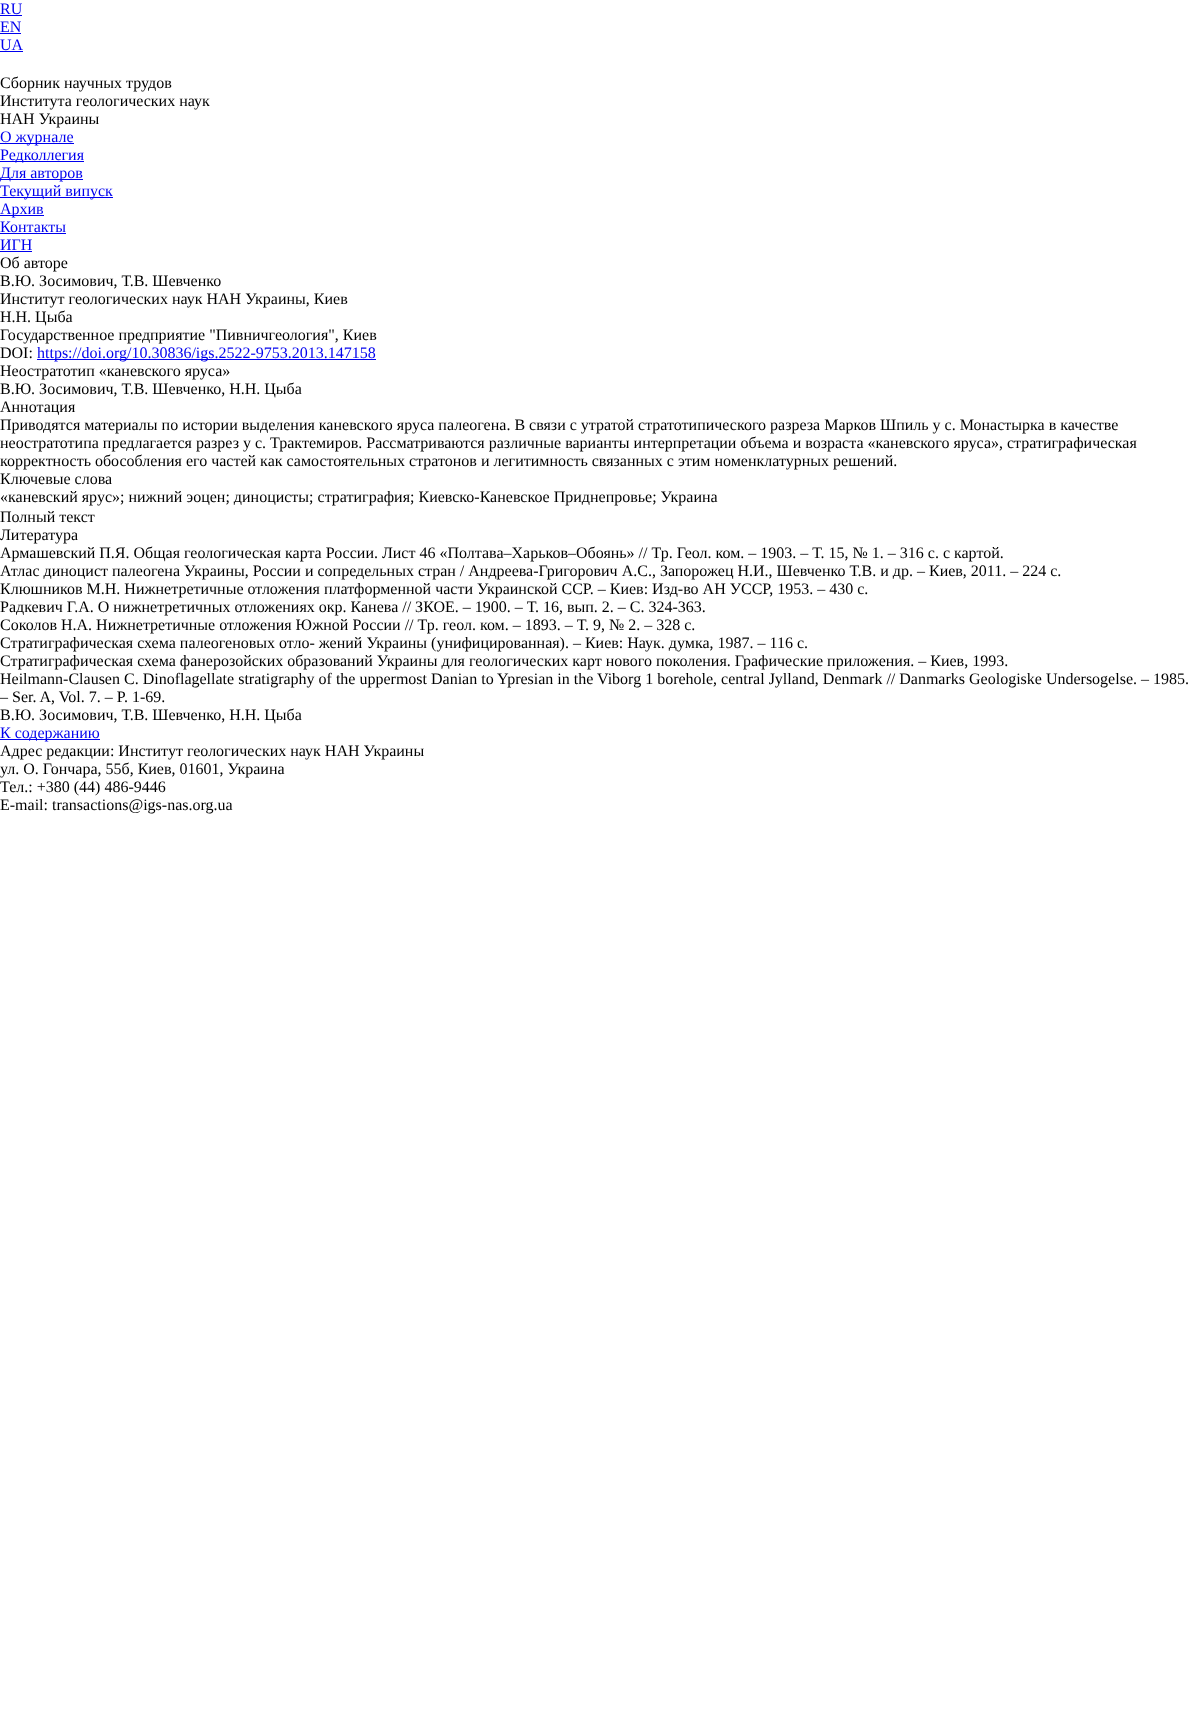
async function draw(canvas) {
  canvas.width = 1196
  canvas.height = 1736
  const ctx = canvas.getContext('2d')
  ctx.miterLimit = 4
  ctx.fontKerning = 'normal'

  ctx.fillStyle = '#fff'
  ctx.fillRect(0, 0, 1196, 1736)
  ctx.font = '16px Liberation Serif'
  ctx.fillStyle = '#00e'
  ctx.fillText('RU', 0, 14)
  ctx.fillRect(0, 15, 22, 1)
  ctx.fillText('EN', 0, 32)
  ctx.fillRect(0, 33, 21, 1)
  ctx.fillText('UA', 0, 50)
  ctx.fillRect(0, 51, 23, 1)
  ctx.fillStyle = '#000'
  ctx.fillText('Сборник научных трудов', 0, 88)
  ctx.fillText('Института геологических наук', 0, 106)
  ctx.fillText('НАН Украины', 0, 124)
  ctx.fillStyle = '#00e'
  ctx.fillRect(0, 143, 74, 1)
  ctx.fillText('О журнале', 0, 142)
  ctx.fillRect(0, 161, 84, 1)
  ctx.fillText('Редколлегия', 0, 160)
  ctx.fillRect(0, 179, 83, 1)
  ctx.fillText('Для авторов', 0, 178)
  ctx.fillRect(0, 197, 113, 1)
  ctx.fillText('Текущий випуск', 0, 196)
  ctx.fillRect(0, 215, 44, 1)
  ctx.fillText('Архив', 0, 214)
  ctx.fillText('Контакты', 0, 232)
  ctx.fillRect(0, 233, 66, 1)
  ctx.fillText('ИГН', 0, 250)
  ctx.fillRect(0, 251, 32, 1)
  ctx.fillStyle = '#000'
  ctx.fillText('Об авторе', 0, 268)
  ctx.fillText('В.Ю. Зосимович, Т.В. Шевченко', 0, 286)
  ctx.fillText('Институт геологических наук НАН Украины, Киев', 0, 304)
  ctx.fillText('Н.Н. Цыба', 0, 322)
  ctx.fillText('Государственное предприятие "Пивничгеология", Киев', 0, 340)
  ctx.fillText('DOI:', 0, 358)
  ctx.fillStyle = '#00e'
  ctx.fillRect(37, 359, 339, 1)
  ctx.fillText('https://doi.org/10.30836/igs.2522-9753.2013.147158', 37, 358)
  ctx.fillStyle = '#000'
  ctx.fillText('Неостратотип «каневского яруса»', 0, 376)
  ctx.fillText('В.Ю. Зосимович, Т.В. Шевченко, Н.Н. Цыба', 0, 394)
  ctx.fillText('Аннотация', 0, 412)
  ctx.fillText('Приводятся материалы по истории выделения каневского яруса палеогена. В связи с утратой стратотипического разреза Марков Шпиль у с. Монастырка в качестве', 0, 430)
  ctx.fillText('неостратотипа предлагается разрез у с. Трактемиров. Рассматриваются различные варианты интерпретации объема и возраста «каневского яруса», стратиграфическая', 0, 448)
  ctx.fillText('корректность обособления его частей как самостоятельных стратонов и легитимность связанных с этим номенклатурных решений.', 0, 466)
  ctx.fillText('Ключевые слова', 0, 484)
  ctx.fillText('«каневский ярус»; нижний эоцен; диноцисты; стратиграфия; Киевско-Каневское Приднепровье; Украина', 0, 502)
  ctx.fillText('Полный текст', 0, 522)
  ctx.fillText('Литература', 0, 540)
  ctx.fillText('Армашевский П.Я. Общая геологическая карта России. Лист 46 «Полтава–Харьков–Обоянь» // Тр. Геол. ком. – 1903. – Т. 15, № 1. – 316 с. с картой.', 0, 558)
  ctx.fillText('Атлас диноцист палеогена Украины, России и сопредельных стран / Андреева-Григорович А.С., Запорожец Н.И., Шевченко Т.В. и др. – Киев, 2011. – 224 с.', 0, 576)
  ctx.fillText('Клюшников М.Н. Нижнетретичные отложения платформенной части Украинской ССР. – Киев: Изд-во АН УССР, 1953. – 430 с.', 0, 594)
  ctx.fillText('Радкевич Г.А. О нижнетретичных отложениях окр. Канева // ЗКОЕ. – 1900. – Т. 16, вып. 2. – С. 324-363.', 0, 612)
  ctx.fillText('Соколов Н.А. Нижнетретичные отложения Южной России // Тр. геол. ком. – 1893. – Т. 9, № 2. – 328 с.', 0, 630)
  ctx.fillText('Стратиграфическая схема палеогеновых отло- жений Украины (унифицированная). – Киев: Наук. думка, 1987. – 116 с.', 0, 648)
  ctx.fillText('Стратиграфическая схема фанерозойских образований Украины для геологических карт нового поколения. Графические приложения. – Киев, 1993.', 0, 666)
  ctx.fillText('Heilmann-Clausen C. Dinoflagellate stratigraphy of the uppermost Danian to Ypresian in the Viborg 1 borehole, central Jylland, Denmark // Danmarks Geologiske Undersogelse. – 1985.', 0, 684)
  ctx.fillText('– Ser. A, Vol. 7. – P. 1-69.', 0, 702)
  ctx.fillText('В.Ю. Зосимович, Т.В. Шевченко, Н.Н. Цыба', 0, 720)
  ctx.fillStyle = '#00e'
  ctx.fillRect(0, 739, 100, 1)
  ctx.fillText('К содержанию', 0, 738)
  ctx.fillStyle = '#000'
  ctx.fillText('Адрес редакции: Институт геологических наук НАН Украины', 0, 756)
  ctx.fillText('ул. О. Гончара, 55б, Киев, 01601, Украина', 0, 774)
  ctx.fillText('Тел.: +380 (44) 486-9446', 0, 792)
  ctx.fillText('E-mail: transactions@igs-nas.org.ua', 0, 810)
}

draw(document.querySelector('canvas'))
